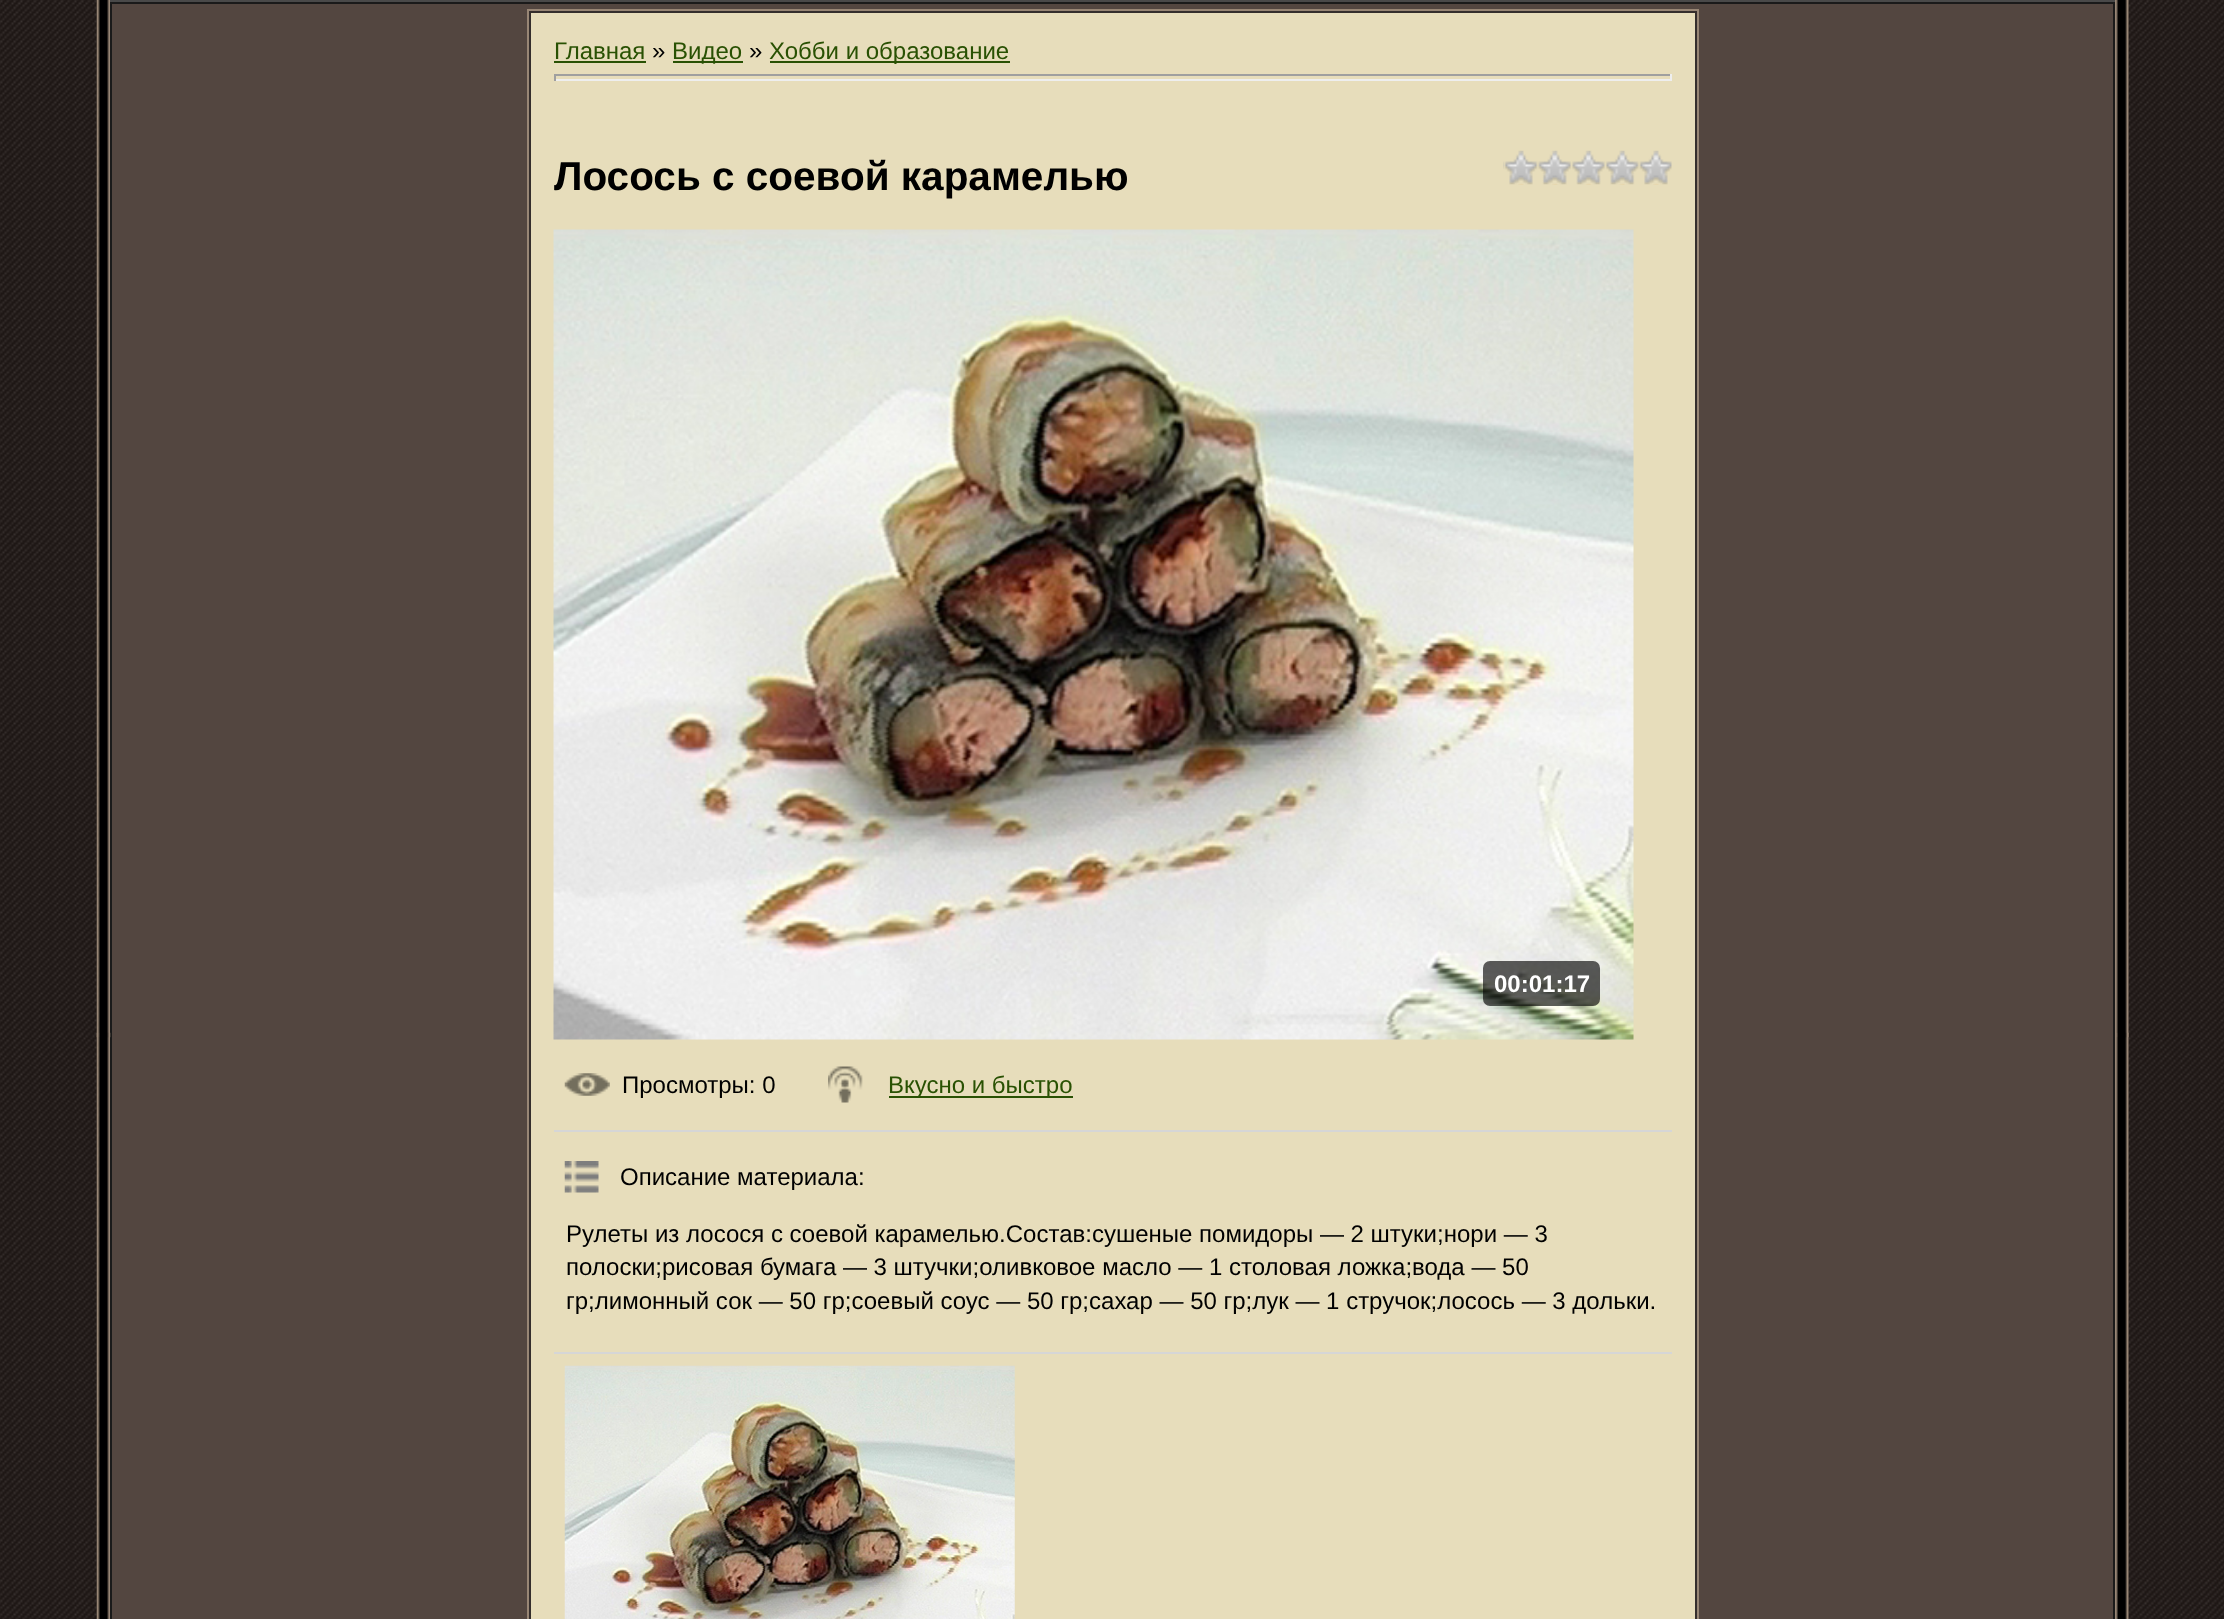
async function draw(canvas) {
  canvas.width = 2224
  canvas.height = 1619
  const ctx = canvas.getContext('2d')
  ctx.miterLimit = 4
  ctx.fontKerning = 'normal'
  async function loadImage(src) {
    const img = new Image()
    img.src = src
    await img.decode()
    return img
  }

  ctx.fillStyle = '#fff'
  ctx.fillRect(0, 0, 2224, 1619)
  ctx.drawImage(await loadImage('image0.png'), 0, 0, 2224, 1619)
  ctx.drawImage(await loadImage('image1.png'), 96, 0, 14, 1619)
  ctx.fillStyle = '#534640'
  ctx.beginPath()
  ctx.rect(111, 3, 2003, 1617)
  ctx.fill()
  ctx.strokeStyle = '#1a1a1a'
  ctx.lineWidth = 2
  ctx.stroke()
  ctx.drawImage(await loadImage('image2.png'), 96, 1032, 15, 6)
  ctx.fillStyle = '#494949'
  ctx.fillRect(110, 0, 2005, 2)
  ctx.strokeStyle = '#988675'
  ctx.strokeRect(528, 10, 1170, 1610)
  ctx.fillStyle = '#e7ddbb'
  ctx.beginPath()
  ctx.rect(530, 12, 1166, 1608)
  ctx.fill()
  ctx.strokeStyle = '#352e2c'
  ctx.stroke()
  ctx.font = '24px Liberation Sans'
  ctx.fillStyle = '#295103'
  ctx.fillText('Главная', 554, 59)
  ctx.fillRect(554, 61, 92, 2)
  ctx.fillStyle = '#000'
  ctx.fillText('»', 652, 59)
  ctx.fillStyle = '#295103'
  ctx.fillRect(673, 61, 70, 2)
  ctx.fillText('Видео', 672, 59)
  ctx.fillStyle = '#000'
  ctx.fillText('»', 749, 59)
  ctx.fillStyle = '#295103'
  ctx.fillRect(770, 61, 240, 2)
  ctx.fillText('Хобби и образование', 769, 59)
  ctx.fillStyle = '#9f9f9f'
  ctx.fillRect(554, 74, 1118, 2)
  ctx.fillStyle = '#eee'
  ctx.fillRect(1670, 74, 2, 7)
  ctx.fillRect(554, 79, 1118, 2)
  ctx.fillStyle = '#9f9f9f'
  ctx.fillRect(554, 74, 2, 7)
  ctx.font = 'bold 40.5px Liberation Sans'
  ctx.fillStyle = '#000'
  ctx.fillText('Лосось с соевой карамелью', 554, 190)
  ctx.drawImage(await loadImage('image3.png'), 1503, 150, 169, 35)
  ctx.drawImage(await loadImage('image4.png'), 553, 229, 1081, 811)
  ctx.fillStyle = '#000000a1'
  ctx.beginPath()
  ctx.roundRect(1483, 961, 117, 45, 7)
  ctx.fill()
  ctx.font = 'bold 24px Liberation Sans'
  ctx.fillStyle = '#fff'
  ctx.fillText('00:01:17', 1494, 992)
  ctx.drawImage(await loadImage('image5.png'), 564, 1073, 46, 23)
  ctx.font = '24px Liberation Sans'
  ctx.fillStyle = '#000'
  ctx.fillText('Просмотры: 0', 622, 1093)
  ctx.drawImage(await loadImage('image6.png'), 828, 1066, 35, 37)
  ctx.fillStyle = '#295103'
  ctx.fillRect(889, 1096, 184, 2)
  ctx.fillText('Вкусно и быстро', 888, 1093)
  ctx.fillStyle = '#d6d6d6'
  ctx.fillRect(554, 1130, 1118, 2)
  ctx.drawImage(await loadImage('image7.png'), 564, 1161, 35, 32)
  ctx.fillStyle = '#000'
  ctx.fillText('Описание материала:', 620, 1185)
  ctx.fillText('Рулеты из лосося с соевой карамелью.Состав:сушеные помидоры — 2 штуки;нори — 3', 566, 1242)
  ctx.fillText('полоски;рисовая бумага — 3 штучки;оливковое масло — 1 столовая ложка;вода — 50', 566, 1275)
  ctx.fillText('гр;лимонный сок — 50 гр;соевый соус — 50 гр;сахар — 50 гр;лук — 1 стручок;лосось — 3 дольки.', 566, 1309)
  ctx.fillStyle = '#d6d6d6'
  ctx.fillRect(554, 1352, 1118, 2)
  ctx.drawImage(await loadImage('image8.png'), 564, 1365, 451, 254)
  ctx.drawImage(await loadImage('image9.png'), 2115, 0, 14, 1619)
  ctx.drawImage(await loadImage('image10.png'), 2116, 1032, 13, 6)
}

draw(document.querySelector('canvas'))
